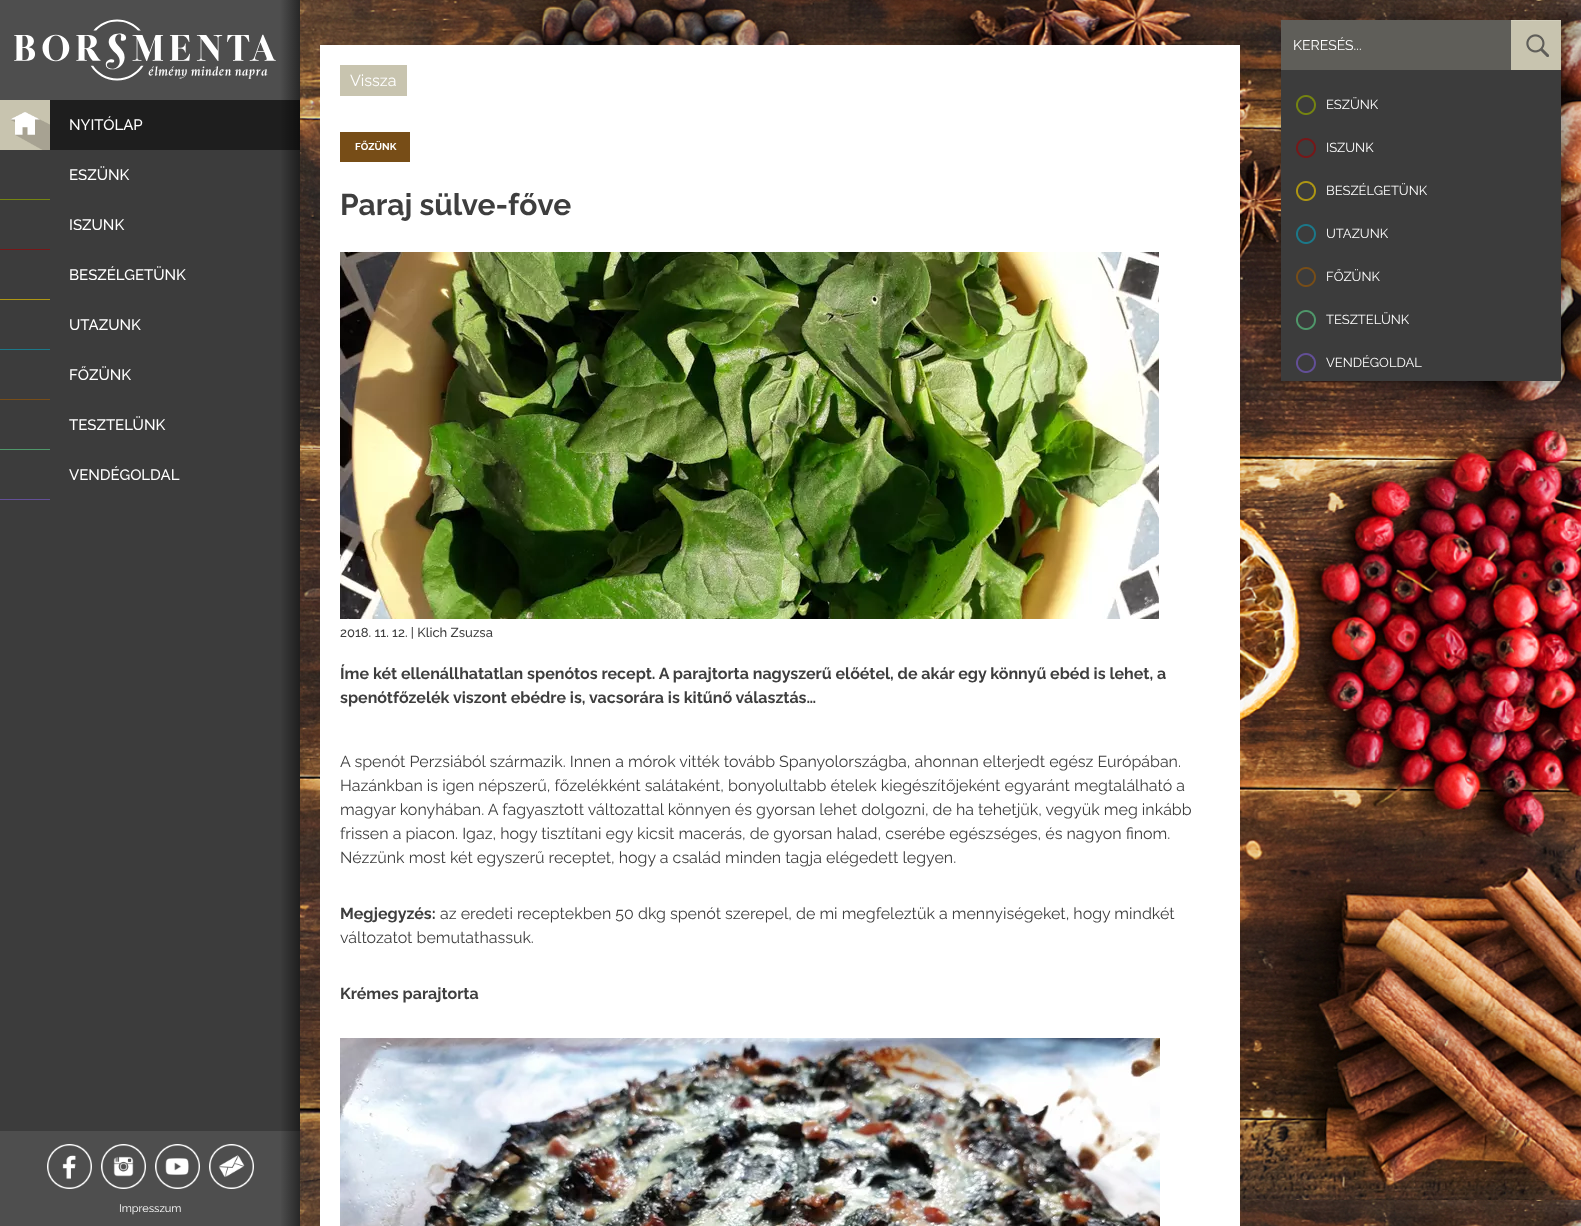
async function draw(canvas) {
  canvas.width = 1581
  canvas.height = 1226
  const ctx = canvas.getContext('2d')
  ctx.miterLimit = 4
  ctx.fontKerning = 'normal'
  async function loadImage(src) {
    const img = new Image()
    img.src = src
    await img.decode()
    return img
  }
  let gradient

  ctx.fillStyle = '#fff'
  ctx.fillRect(0, 0, 1581, 1226)
  ctx.drawImage(await loadImage('image0.png'), 300, 0, 1281, 1226)
  ctx.fillStyle = '#4e4e4e'
  ctx.fillRect(0, 0, 280, 100)
  ctx.drawImage(await loadImage('image1.png'), 14, 19, 262, 62)
  gradient = ctx.createLinearGradient(280, 0, 300, 0)
  gradient.addColorStop(0, '#4e4e4e')
  gradient.addColorStop(1, '#272727')
  ctx.fillStyle = gradient
  ctx.fillRect(280, 0, 20, 100)
  ctx.fillStyle = '#3c3c3c'
  ctx.fillRect(0, 150, 300, 981)
  ctx.fillStyle = '#1e1e1e'
  ctx.fillRect(50, 100, 250, 50)
  ctx.fillStyle = '#c8c4af'
  ctx.fillRect(0, 100, 50, 50)
  ctx.drawImage(await loadImage('image2.png'), 10, 112, 40, 38)
  ctx.font = '500 15px Raleway'
  ctx.fillStyle = '#fff'
  ctx.fillText('NYITÓLAP', 69, 130)
  ctx.fillText('ESZÜNK', 69, 180)
  ctx.fillStyle = '#758410'
  ctx.fillRect(0, 199, 50, 1)
  ctx.fillStyle = '#fff'
  ctx.fillText('ISZUNK', 69, 230)
  ctx.fillStyle = '#771718'
  ctx.fillRect(0, 249, 50, 1)
  ctx.fillStyle = '#fff'
  ctx.fillText('BESZÉLGETÜNK', 69, 280)
  ctx.fillStyle = '#ae9613'
  ctx.fillRect(0, 299, 50, 1)
  ctx.fillStyle = '#fff'
  ctx.fillText('UTAZUNK', 69, 330)
  ctx.fillStyle = '#1b7889'
  ctx.fillRect(0, 349, 50, 1)
  ctx.fillStyle = '#fff'
  ctx.fillText('FŐZÜNK', 69, 380)
  ctx.fillStyle = '#774d17'
  ctx.fillRect(0, 399, 50, 1)
  ctx.fillStyle = '#fff'
  ctx.fillText('TESZTELÜNK', 69, 430)
  ctx.fillStyle = '#4f976a'
  ctx.fillRect(0, 449, 50, 1)
  ctx.fillStyle = '#fff'
  ctx.fillText('VENDÉGOLDAL', 69, 480)
  ctx.fillStyle = '#634f97'
  ctx.fillRect(0, 499, 50, 1)
  ctx.fillStyle = '#4e4e4e'
  ctx.fillRect(0, 1131, 300, 95)
  ctx.drawImage(await loadImage('image3.png'), 47, 1144, 45, 45)
  ctx.drawImage(await loadImage('image4.png'), 101, 1144, 45, 45)
  ctx.drawImage(await loadImage('image5.png'), 155, 1144, 45, 45)
  ctx.drawImage(await loadImage('image6.png'), 209, 1144, 45, 45)
  ctx.font = '11px Raleway'
  ctx.fillStyle = '#fff'
  ctx.fillText('Impresszum', 119, 1212)
  gradient = ctx.createLinearGradient(280, 0, 300, 0)
  gradient.addColorStop(0, '#00000000')
  gradient.addColorStop(1, '#00000080')
  ctx.fillStyle = gradient
  ctx.fillRect(281, 100, 19, 1126)
  ctx.fillStyle = '#fff'
  ctx.fillRect(320, 45, 920, 1181)
  ctx.fillStyle = '#c8c4af'
  ctx.fillRect(340, 65, 67, 31)
  ctx.font = '16px Raleway'
  ctx.fillStyle = '#fff'
  ctx.fillText('Vissza', 350, 86)
  ctx.fillStyle = '#774d17'
  ctx.fillRect(340, 132, 70, 30)
  ctx.font = 'bold 10px Raleway'
  ctx.fillStyle = '#fff'
  ctx.fillText('FŐZÜNK', 355, 150)
  ctx.font = 'bold 30px Raleway'
  ctx.fillStyle = '#3e3e3e'
  ctx.fillText('Paraj sülve-főve', 340, 215)
  ctx.drawImage(await loadImage('image7.png'), 340, 252, 819, 367)
  ctx.font = '500 13px Raleway'
  ctx.fillText('2018. 11. 12. | Klich Zsuzsa', 340, 637)
  ctx.font = 'bold 16px Raleway'
  ctx.fillText('Íme két ellenállhatatlan spenótos recept. A parajtorta nagyszerű előétel, de akár egy könnyű ebéd is lehet, a', 340, 679)
  ctx.fillText('spenótfőzelék viszont ebédre is, vacsorára is kitűnő választás…', 340, 703)
  ctx.font = '16px Raleway'
  ctx.fillText('A spenót Perzsiából származik. Innen a mórok vitték tovább Spanyolországba, ahonnan elterjedt egész Európában.', 340, 767)
  ctx.fillText('Hazánkban is igen népszerű, főzelékként salátaként, bonyolultabb ételek kiegészítőjeként egyaránt megtalálható a', 340, 791)
  ctx.fillText('magyar konyhában. A fagyasztott változattal könnyen és gyorsan lehet dolgozni, de ha tehetjük, vegyük meg inkább', 340, 815)
  ctx.fillText('frissen a piacon. Igaz, hogy tisztítani egy kicsit macerás, de gyorsan halad, cserébe egészséges, és nagyon finom.', 340, 839)
  ctx.fillText('Nézzünk most két egyszerű receptet, hogy a család minden tagja elégedett legyen.', 340, 863)
  ctx.font = 'bold 16px Raleway'
  ctx.fillText('Megjegyzés:', 340, 919)
  ctx.font = '16px Raleway'
  ctx.fillText('az eredeti receptekben 50 dkg spenót szerepel, de mi megfeleztük a mennyiségeket, hogy mindkét', 440, 919)
  ctx.fillText('változatot bemutathassuk.', 340, 943)
  ctx.font = 'bold 16px Raleway'
  ctx.fillText('Krémes parajtorta', 340, 999)
  ctx.drawImage(await loadImage('image8.png'), 340, 1038, 820, 188)
  ctx.fillStyle = '#00000040'
  ctx.filter = 'blur(5px)'
  ctx.beginPath()
  ctx.rect(1284, 24, 280, 361)
  ctx.fill()
  ctx.filter = 'none'
  ctx.fillStyle = '#3c3c3c'
  ctx.fillRect(1281, 70, 280, 311)
  ctx.fillStyle = '#5f5e59'
  ctx.fillRect(1281, 20, 230, 50)
  ctx.font = '14px Raleway'
  ctx.fillStyle = '#fff'
  ctx.fillText('KERESÉS...', 1293, 50)
  ctx.drawImage(await loadImage('image9.png'), 1511, 21, 50, 49)
  ctx.fillStyle = '#d0cdbb'
  ctx.fillRect(1511, 20, 50, 1)
  ctx.drawImage(await loadImage('image10.png'), 1296, 95, 20, 20)
  ctx.font = '13px Raleway'
  ctx.fillStyle = '#fff'
  ctx.fillText('ESZÜNK', 1326, 109)
  ctx.drawImage(await loadImage('image11.png'), 1296, 138, 20, 20)
  ctx.fillText('ISZUNK', 1326, 152)
  ctx.drawImage(await loadImage('image12.png'), 1296, 181, 20, 20)
  ctx.fillText('BESZÉLGETÜNK', 1326, 195)
  ctx.drawImage(await loadImage('image13.png'), 1296, 224, 20, 20)
  ctx.fillText('UTAZUNK', 1326, 238)
  ctx.drawImage(await loadImage('image14.png'), 1296, 267, 20, 20)
  ctx.fillText('FŐZÜNK', 1326, 281)
  ctx.drawImage(await loadImage('image15.png'), 1296, 310, 20, 20)
  ctx.fillText('TESZTELÜNK', 1326, 324)
  ctx.drawImage(await loadImage('image16.png'), 1296, 353, 20, 20)
  ctx.fillText('VENDÉGOLDAL', 1326, 367)
}

draw(document.querySelector('canvas'))
